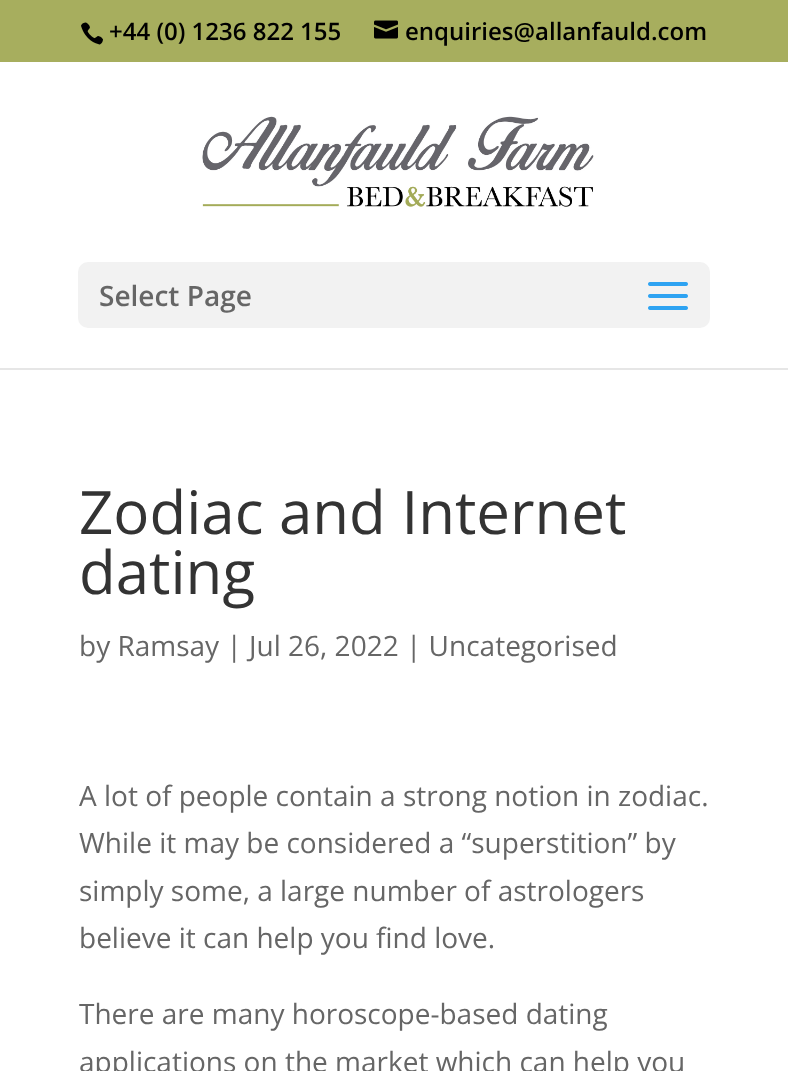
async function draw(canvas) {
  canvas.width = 788
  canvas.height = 1071
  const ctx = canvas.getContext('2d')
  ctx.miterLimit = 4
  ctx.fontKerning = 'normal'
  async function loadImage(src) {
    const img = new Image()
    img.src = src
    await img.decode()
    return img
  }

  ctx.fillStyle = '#fff'
  ctx.fillRect(0, 0, 788, 1071)
  ctx.fillStyle = '#a7ae5e'
  ctx.fillRect(0, 0, 788, 62)
  ctx.drawImage(await loadImage('image0.png'), 81, 22, 22, 23)
  ctx.font = '600 24px Open Sans'
  ctx.fillStyle = '#000'
  ctx.fillText('+44 (0) 1236 822 155', 109, 40)
  ctx.drawImage(await loadImage('image1.png'), 374, 20, 24, 19)
  ctx.fillText('enquiries@allanfauld.com', 405, 40)
  ctx.fillStyle = '#e6e6e6'
  ctx.fillRect(0, 368, 788, 2)
  ctx.drawImage(await loadImage('image2.png'), 202, 116, 392, 91)
  ctx.fillStyle = '#f2f2f2'
  ctx.beginPath()
  ctx.roundRect(78, 262, 632, 66, 10)
  ctx.fill()
  ctx.font = '600 28px Open Sans'
  ctx.fillStyle = '#666'
  ctx.fillText('Select Page', 99, 306)
  ctx.drawImage(await loadImage('image3.png'), 648, 282, 40, 28)
  ctx.font = '60px Open Sans'
  ctx.fillStyle = '#333'
  ctx.fillText('Zodiac and Internet', 79, 534)
  ctx.fillText('dating', 79, 594)
  ctx.font = '28px Open Sans'
  ctx.fillStyle = '#666'
  ctx.fillText('by Ramsay | Jul 26, 2022 | Uncategorised', 79, 656)
  ctx.fillText('A lot of people contain a strong notion in zodiac.', 79, 806)
  ctx.fillText('While it may be considered a “superstition” by', 79, 853)
  ctx.fillText('simply some, a large number of astrologers', 79, 901)
  ctx.fillText('believe it can help you find love.', 79, 948)
  ctx.fillText('There are many horoscope-based dating', 79, 1024)
  ctx.fillText('applications on the market which can help you', 79, 1072)
}

draw(document.querySelector('canvas'))
